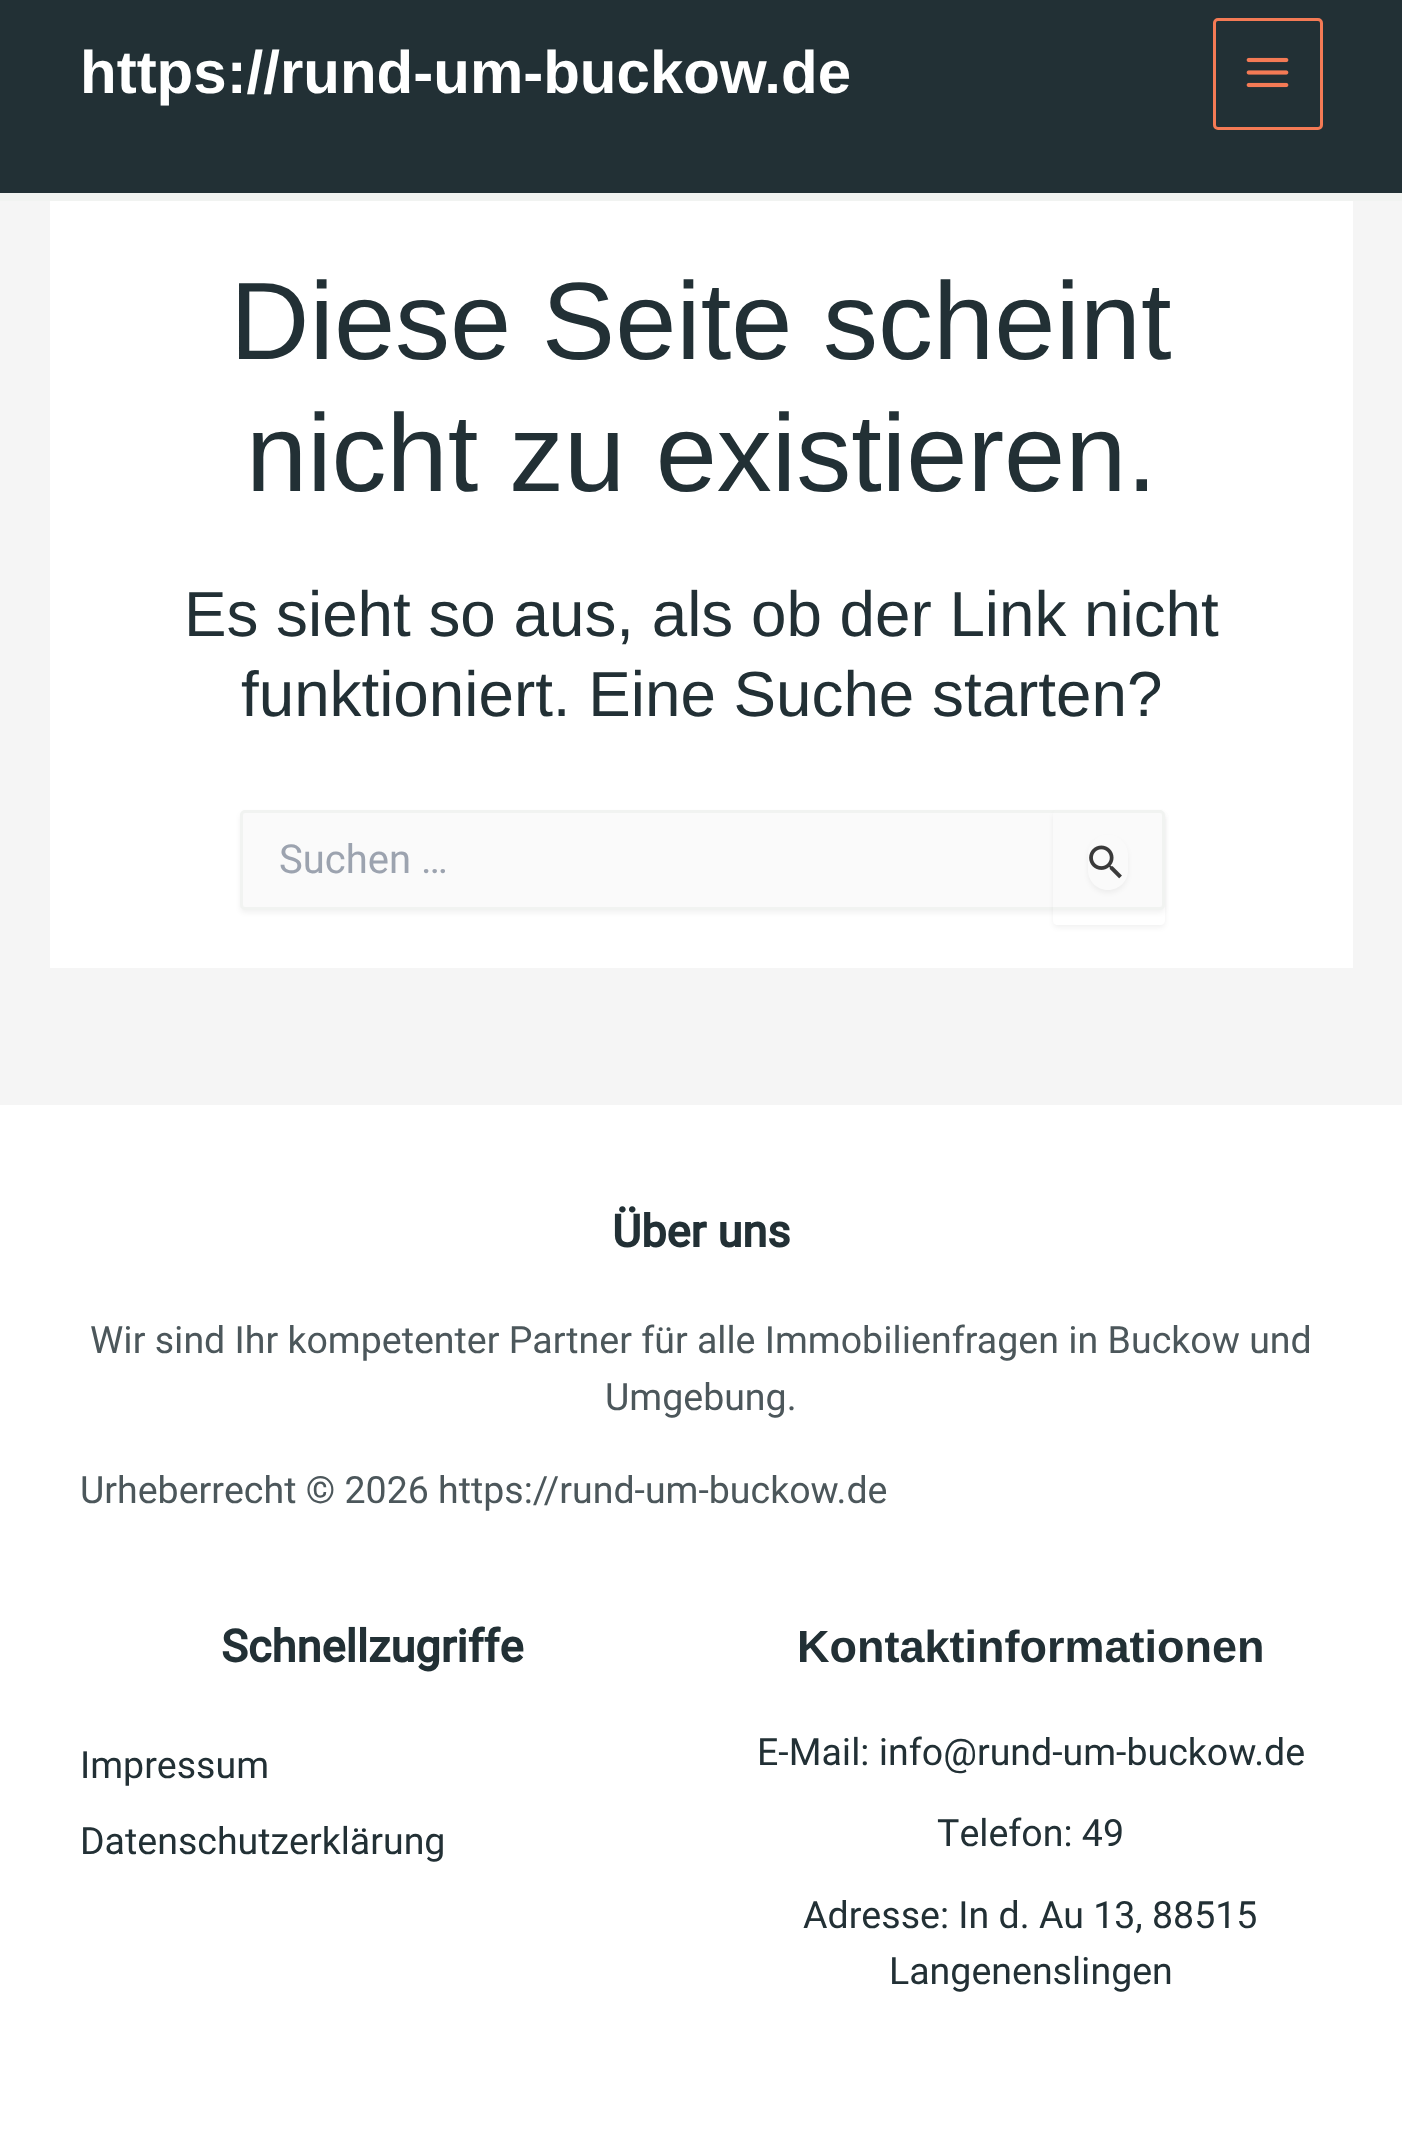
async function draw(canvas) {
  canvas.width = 1402
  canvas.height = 2148
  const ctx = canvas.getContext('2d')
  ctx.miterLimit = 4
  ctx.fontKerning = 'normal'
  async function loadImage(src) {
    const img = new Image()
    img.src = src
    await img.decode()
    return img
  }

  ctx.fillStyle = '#f5f5f5'
  ctx.fillRect(0, 0, 1402, 2148)
  ctx.fillStyle = '#223035'
  ctx.fillRect(0, 0, 1402, 193)
  ctx.fillStyle = '#f1f3f1'
  ctx.fillRect(0, 193, 1402, 8)
  ctx.font = 'bold 60px Liberation Sans'
  ctx.fillStyle = '#fff'
  ctx.fillText('https://rund-um-buckow.de', 80, 93)
  ctx.beginPath()
  ctx.roundRect(1214.5, 19.5, 107, 109, 3.5)
  ctx.strokeStyle = '#f47a55'
  ctx.lineWidth = 3
  ctx.stroke()
  ctx.drawImage(await loadImage('image0.png'), 1246, 57, 43, 31)
  ctx.fillRect(50, 201, 1303, 767)
  ctx.font = '110px Liberation Sans'
  ctx.fillStyle = '#223035'
  ctx.fillText('Diese Seite scheint', 230, 359)
  ctx.fillText('nicht zu existieren.', 246, 491)
  ctx.font = '63.75px Liberation Sans'
  ctx.fillText('Es sieht so aus, als ob der Link nicht', 184, 636)
  ctx.fillText('funktioniert. Eine Suche starten?', 241, 716)
  ctx.fillStyle = '#0000000d'
  ctx.filter = 'blur(2.5px)'
  ctx.beginPath()
  ctx.roundRect(240, 813, 925, 100, 5)
  ctx.fill()
  ctx.filter = 'none'
  ctx.fillStyle = '#fafafa'
  ctx.beginPath()
  ctx.roundRect(241.5, 811.5, 922, 97, 3.5)
  ctx.fill()
  ctx.strokeStyle = '#f1f3f1'
  ctx.stroke()
  ctx.font = '40px Heebo'
  ctx.fillStyle = '#9ca3af'
  ctx.fillText('Suchen …', 279, 873)
  ctx.save()
  ctx.beginPath()
  ctx.moveTo(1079, 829)
  ctx.lineTo(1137, 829)
  ctx.lineTo(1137, 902)
  ctx.lineTo(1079, 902)
  ctx.closePath()
  ctx.moveTo(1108, 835)
  ctx.bezierCurveTo(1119, 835, 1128, 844, 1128, 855)
  ctx.lineTo(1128, 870)
  ctx.bezierCurveTo(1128, 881, 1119, 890, 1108, 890)
  ctx.bezierCurveTo(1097, 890, 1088, 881, 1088, 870)
  ctx.lineTo(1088, 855)
  ctx.bezierCurveTo(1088, 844, 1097, 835, 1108, 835)
  ctx.closePath()
  ctx.clip('evenodd')
  ctx.fillStyle = '#0000000d'
  ctx.filter = 'blur(2.5px)'
  ctx.beginPath()
  ctx.roundRect(1088, 838, 40, 55, 20)
  ctx.fill()
  ctx.filter = 'none'
  ctx.restore()
  ctx.drawImage(await loadImage('image1.png'), 1089, 845, 33, 34)
  ctx.save()
  ctx.beginPath()
  ctx.moveTo(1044, 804)
  ctx.lineTo(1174, 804)
  ctx.lineTo(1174, 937)
  ctx.lineTo(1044, 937)
  ctx.closePath()
  ctx.moveTo(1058, 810)
  ctx.lineTo(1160, 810)
  ctx.bezierCurveTo(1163, 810, 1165, 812, 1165, 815)
  ctx.lineTo(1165, 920)
  ctx.bezierCurveTo(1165, 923, 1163, 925, 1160, 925)
  ctx.lineTo(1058, 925)
  ctx.bezierCurveTo(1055, 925, 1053, 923, 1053, 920)
  ctx.lineTo(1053, 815)
  ctx.bezierCurveTo(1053, 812, 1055, 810, 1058, 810)
  ctx.closePath()
  ctx.clip('evenodd')
  ctx.fillStyle = '#0000000d'
  ctx.filter = 'blur(2.5px)'
  ctx.beginPath()
  ctx.roundRect(1053, 813, 112, 115, 5)
  ctx.fill()
  ctx.filter = 'none'
  ctx.restore()
  ctx.fillStyle = '#fff'
  ctx.fillRect(0, 1105, 1402, 1043)
  ctx.font = 'bold 45px Heebo'
  ctx.fillStyle = '#223035'
  ctx.fillText('Über uns', 612, 1247)
  ctx.font = '37.5px Heebo'
  ctx.fillStyle = '#4c575b'
  ctx.fillText('Wir sind Ihr kompetenter Partner für alle Immobilienfragen in Buckow und', 90, 1353)
  ctx.fillText('Umgebung.', 605, 1410)
  ctx.fillText('Urheberrecht © 2026 https://rund-um-buckow.de', 80, 1503)
  ctx.font = 'bold 45px Heebo'
  ctx.fillStyle = '#223035'
  ctx.fillText('Schnellzugriffe', 221, 1662)
  ctx.font = '37.5px Heebo'
  ctx.fillText('Impressum', 80, 1778)
  ctx.fillText('Datenschutzerklärung', 80, 1854)
  ctx.font = 'bold 45px Liberation Sans'
  ctx.fillText('Kontaktinformationen', 797, 1662)
  ctx.font = '37.5px Heebo'
  ctx.fillText('E-Mail: info@rund-um-buckow.de', 757, 1765)
  ctx.fillText('Telefon: 49', 937, 1846)
  ctx.fillText('Adresse: In d. Au 13, 88515', 803, 1928)
  ctx.fillText('Langenenslingen', 889, 1984)
}

draw(document.querySelector('canvas'))
